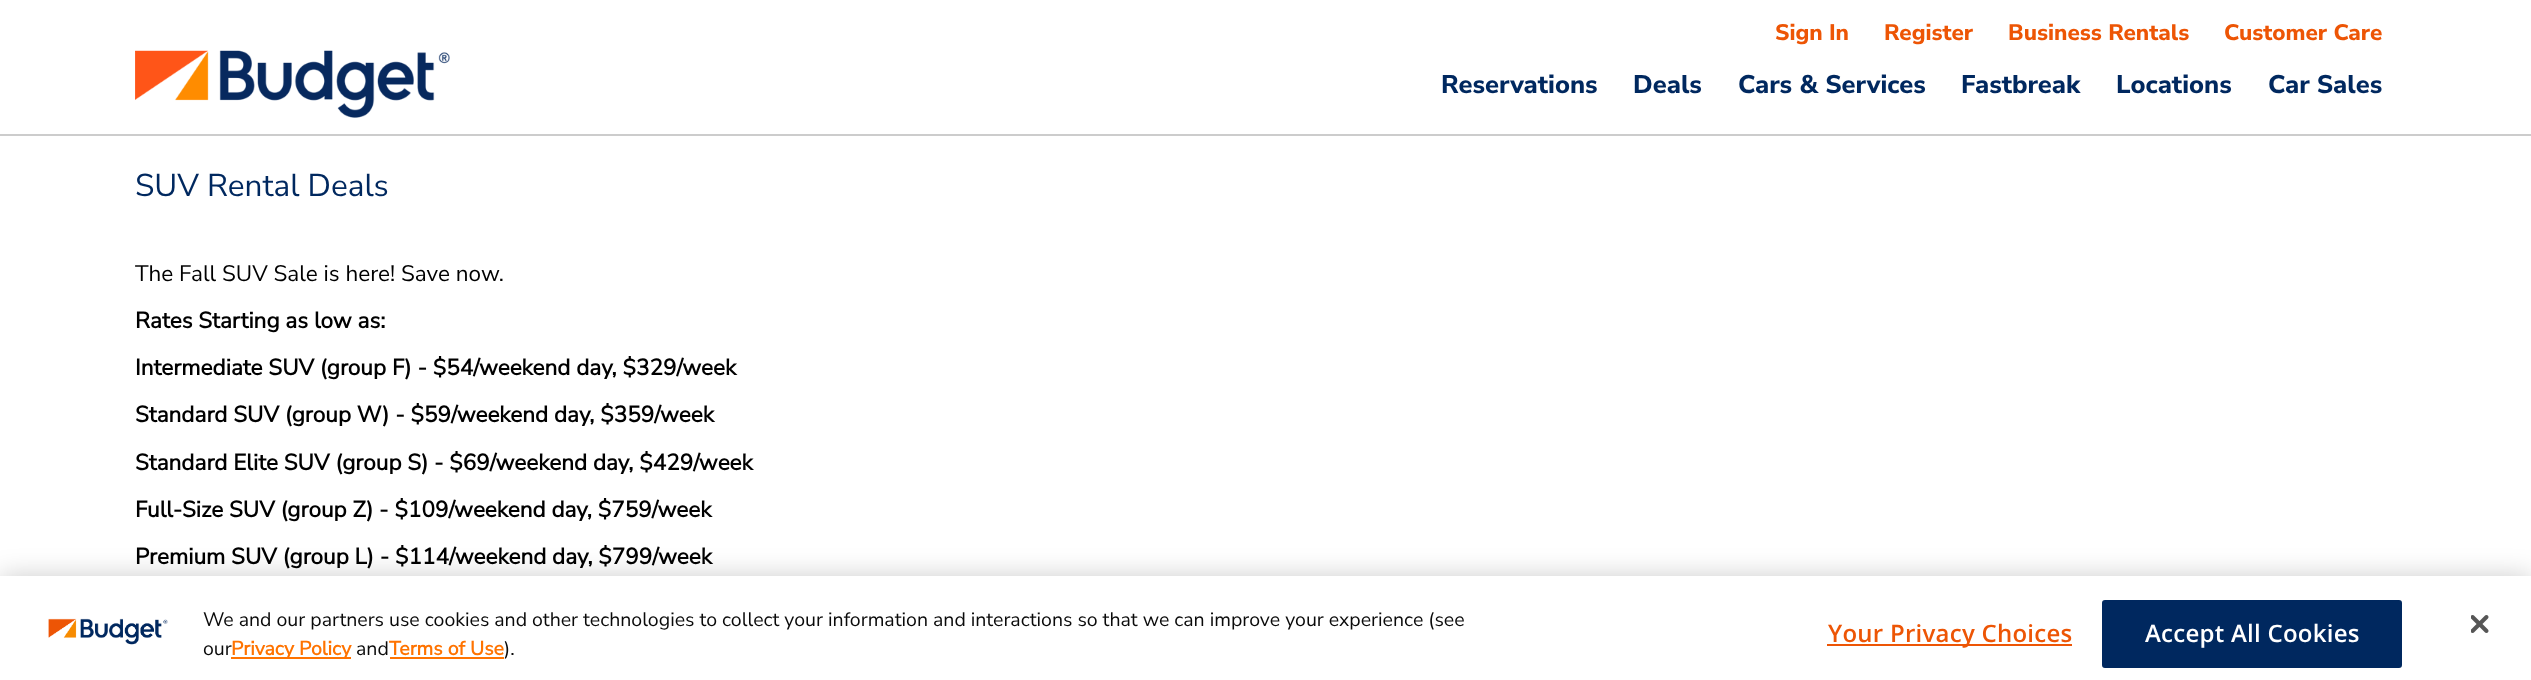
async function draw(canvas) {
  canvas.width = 2531
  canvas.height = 680
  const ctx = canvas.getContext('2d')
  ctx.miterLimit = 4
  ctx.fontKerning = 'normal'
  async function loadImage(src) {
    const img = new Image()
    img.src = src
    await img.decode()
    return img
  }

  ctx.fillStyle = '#fff'
  ctx.fillRect(0, 0, 2531, 680)
  ctx.fillStyle = '#ccc'
  ctx.fillRect(0, 134, 2531, 2)
  ctx.drawImage(await loadImage('image0.png'), 135, 50, 315, 68)
  ctx.font = '800 22.5px Nunito Sans'
  ctx.fillStyle = '#ed5505'
  ctx.fillText('Sign In', 1775, 40)
  ctx.fillText('Register', 1884, 40)
  ctx.fillText('Business Rentals', 2008, 40)
  ctx.fillText('Customer Care', 2224, 40)
  ctx.font = '800 25.5px Nunito Sans'
  ctx.fillStyle = '#00285f'
  ctx.fillText('Reservations', 1441, 93)
  ctx.fillText('Deals', 1633, 93)
  ctx.fillText('Cars & Services', 1738, 93)
  ctx.fillText('Fastbreak', 1961, 93)
  ctx.fillText('Locations', 2116, 93)
  ctx.fillText('Car Sales', 2268, 93)
  ctx.font = '31.5px Nunito Sans'
  ctx.fillText('SUV Rental Deals', 135, 196)
  ctx.font = '22.5px Nunito Sans'
  ctx.fillStyle = '#000'
  ctx.fillText('The Fall SUV Sale is here! Save now.', 135, 281)
  ctx.font = 'bold 22.5px Nunito Sans'
  ctx.fillText('Rates Starting as low as:', 135, 328)
  ctx.fillText('Intermediate SUV (group F) - $54/weekend day, $329/week', 135, 375)
  ctx.fillText('Standard SUV (group W) - $59/weekend day, $359/week', 135, 422)
  ctx.fillText('Standard Elite SUV (group S) - $69/weekend day, $429/week', 135, 470)
  ctx.fillText('Full-Size SUV (group Z) - $109/weekend day, $759/week', 135, 517)
  ctx.fillText('Premium SUV (group L) - $114/weekend day, $799/week', 135, 564)
  ctx.fillStyle = '#00000033'
  ctx.filter = 'blur(13.5px)'
  ctx.beginPath()
  ctx.rect(0, 576, 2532, 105)
  ctx.fill()
  ctx.filter = 'none'
  ctx.fillStyle = '#fff'
  ctx.fillRect(0, 576, 2531, 104)
  ctx.drawImage(await loadImage('image1.png'), 48, 618, 120, 27)
  ctx.font = '19.5px Nunito Sans'
  ctx.fillStyle = '#0a0a0a'
  ctx.fillText('We and our partners use cookies and other technologies to collect your information and interactions so that we can improve your experience (see', 203, 626)
  ctx.fillText('our', 203, 655)
  ctx.fillStyle = '#ff7300'
  ctx.fillRect(231, 657, 120, 2)
  ctx.font = 'bold 19.5px Nunito Sans'
  ctx.fillText('Privacy Policy', 231, 655)
  ctx.font = '19.5px Nunito Sans'
  ctx.fillStyle = '#0a0a0a'
  ctx.fillText('and', 356, 655)
  ctx.font = 'bold 19.5px Nunito Sans'
  ctx.fillStyle = '#ff7300'
  ctx.fillText('Terms of Use', 389, 655)
  ctx.fillRect(390, 657, 114, 2)
  ctx.font = '19.5px Nunito Sans'
  ctx.fillStyle = '#0a0a0a'
  ctx.fillText(').', 504, 655)
  ctx.fillStyle = '#ed5505'
  ctx.fillRect(1827, 644, 245, 2)
  ctx.letterSpacing = '0.25px'
  ctx.font = '600 24px Open Sans'
  ctx.fillText('Your Privacy Choices', 1828, 642)
  ctx.fillStyle = '#00285f'
  ctx.beginPath()
  ctx.roundRect(2103, 601, 298, 66, 2)
  ctx.fill()
  ctx.strokeStyle = '#00285f'
  ctx.lineWidth = 2
  ctx.stroke()
  ctx.fillStyle = '#fff'
  ctx.fillText('Accept All Cookies', 2145, 642)
  ctx.drawImage(await loadImage('image2.png'), 2471, 615, 18, 18)
}

draw(document.querySelector('canvas'))
